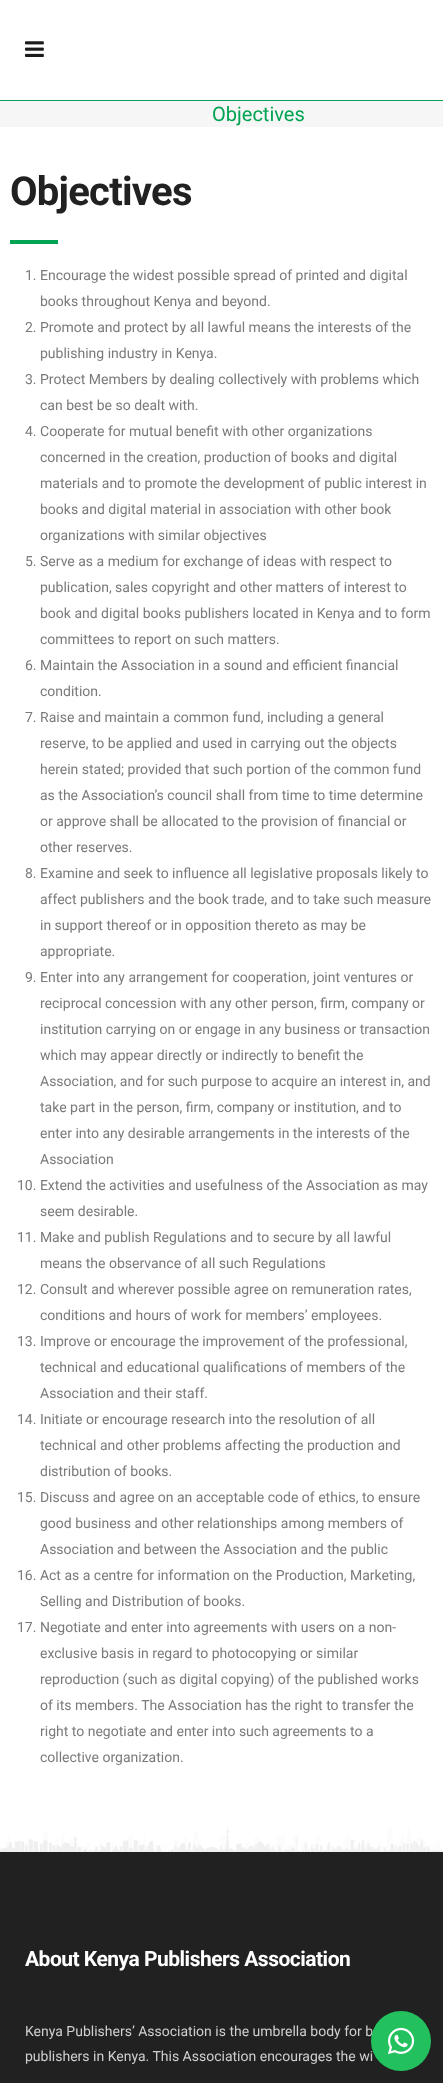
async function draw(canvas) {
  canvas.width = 443
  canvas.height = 2083
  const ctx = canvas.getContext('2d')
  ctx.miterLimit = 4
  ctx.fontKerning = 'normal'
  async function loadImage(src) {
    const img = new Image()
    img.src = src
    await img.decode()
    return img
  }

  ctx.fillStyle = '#f6f6f6'
  ctx.fillRect(0, 0, 443, 2083)
  ctx.fillStyle = '#fff'
  ctx.fillRect(0, 0, 443, 100)
  ctx.fillStyle = '#00a452'
  ctx.fillRect(0, 100, 443, 1)
  ctx.drawImage(await loadImage('image0.png'), 25, 41, 19, 16)
  ctx.font = '20px Roboto'
  ctx.fillText('Objectives', 212, 121)
  ctx.fillStyle = '#fff'
  ctx.fillRect(0, 127, 443, 1725)
  ctx.letterSpacing = '-0.75px'
  ctx.font = 'bold 40px Roboto'
  ctx.fillStyle = '#212121'
  ctx.fillText('Objectives', 10, 205)
  ctx.fillStyle = '#00a452'
  ctx.fillRect(10, 240, 48, 4)
  ctx.letterSpacing = '0px'
  ctx.font = '14px Roboto'
  ctx.fillStyle = '#7a7a7a'
  ctx.fillText('1. Encourage the widest possible spread of printed and digital', 25, 280)
  ctx.fillText('books throughout Kenya and beyond.', 40, 306)
  ctx.fillText('2. Promote and protect by all lawful means the interests of the', 25, 332)
  ctx.fillText('publishing industry in Kenya.', 40, 358)
  ctx.fillText('3. Protect Members by dealing collectively with problems which', 25, 384)
  ctx.fillText('can best be so dealt with.', 40, 410)
  ctx.fillText('4. Cooperate for mutual benefit with other organizations', 25, 436)
  ctx.fillText('concerned in the creation, production of books and digital', 40, 462)
  ctx.fillText('materials and to promote the development of public interest in', 40, 488)
  ctx.fillText('books and digital material in association with other book', 40, 514)
  ctx.fillText('organizations with similar objectives', 40, 540)
  ctx.fillText('5. Serve as a medium for exchange of ideas with respect to', 25, 566)
  ctx.fillText('publication, sales copyright and other matters of interest to', 40, 592)
  ctx.fillText('book and digital books publishers located in Kenya and to form', 40, 618)
  ctx.fillText('committees to report on such matters.', 40, 644)
  ctx.fillText('6. Maintain the Association in a sound and efficient financial', 25, 670)
  ctx.fillText('condition.', 40, 696)
  ctx.fillText('7. Raise and maintain a common fund, including a general', 25, 722)
  ctx.fillText('reserve, to be applied and used in carrying out the objects', 40, 748)
  ctx.fillText('herein stated; provided that such portion of the common fund', 40, 774)
  ctx.fillText('as the Association’s council shall from time to time determine', 40, 800)
  ctx.fillText('or approve shall be allocated to the provision of financial or', 40, 826)
  ctx.fillText('other reserves.', 40, 852)
  ctx.fillText('8. Examine and seek to influence all legislative proposals likely to', 25, 878)
  ctx.fillText('affect publishers and the book trade, and to take such measure', 40, 904)
  ctx.fillText('in support thereof or in opposition thereto as may be', 40, 930)
  ctx.fillText('appropriate.', 40, 956)
  ctx.fillText('9. Enter into any arrangement for cooperation, joint ventures or', 25, 982)
  ctx.fillText('reciprocal concession with any other person, firm, company or', 40, 1008)
  ctx.fillText('institution carrying on or engage in any business or transaction', 40, 1034)
  ctx.fillText('which may appear directly or indirectly to benefit the', 40, 1060)
  ctx.fillText('Association, and for such purpose to acquire an interest in, and', 40, 1086)
  ctx.fillText('take part in the person, firm, company or institution, and to', 40, 1112)
  ctx.fillText('enter into any desirable arrangements in the interests of the', 40, 1138)
  ctx.fillText('Association', 40, 1164)
  ctx.fillText('10. Extend the activities and usefulness of the Association as may', 17, 1190)
  ctx.fillText('seem desirable.', 40, 1216)
  ctx.fillText('11. Make and publish Regulations and to secure by all lawful', 17, 1242)
  ctx.fillText('means the observance of all such Regulations', 40, 1268)
  ctx.fillText('12. Consult and wherever possible agree on remuneration rates,', 17, 1294)
  ctx.fillText('conditions and hours of work for members’ employees.', 40, 1320)
  ctx.fillText('13. Improve or encourage the improvement of the professional,', 17, 1346)
  ctx.fillText('technical and educational qualifications of members of the', 40, 1372)
  ctx.fillText('Association and their staff.', 40, 1398)
  ctx.fillText('14. Initiate or encourage research into the resolution of all', 17, 1424)
  ctx.fillText('technical and other problems affecting the production and', 40, 1450)
  ctx.fillText('distribution of books.', 40, 1476)
  ctx.fillText('15. Discuss and agree on an acceptable code of ethics, to ensure', 17, 1502)
  ctx.fillText('good business and other relationships among members of', 40, 1528)
  ctx.fillText('Association and between the Association and the public', 40, 1554)
  ctx.fillText('16. Act as a centre for information on the Production, Marketing,', 17, 1580)
  ctx.fillText('Selling and Distribution of books.', 40, 1606)
  ctx.fillText('17. Negotiate and enter into agreements with users on a non-', 17, 1632)
  ctx.fillText('exclusive basis in regard to photocopying or similar', 40, 1658)
  ctx.fillText('reproduction (such as digital copying) of the published works', 40, 1684)
  ctx.fillText('of its members. The Association has the right to transfer the', 40, 1710)
  ctx.fillText('right to negotiate and enter into such agreements to a', 40, 1736)
  ctx.fillText('collective organization.', 40, 1762)
  ctx.drawImage(await loadImage('image1.png'), 0, 1826, 443, 26)
  ctx.fillStyle = '#212121'
  ctx.fillRect(0, 1852, 443, 231)
  ctx.letterSpacing = '-0.5px'
  ctx.font = 'bold 21px Roboto'
  ctx.fillStyle = '#fff'
  ctx.fillText('About Kenya Publishers Association', 25, 1966)
  ctx.letterSpacing = '0px'
  ctx.font = '14px Roboto'
  ctx.fillStyle = '#cfcfcf'
  ctx.fillText('Kenya Publishers’ Association is the umbrella body for b', 25, 2036)
  ctx.fillText('publishers in Kenya. This Association encourages the wi', 25, 2061)
  ctx.fillStyle = '#22c15e'
  ctx.beginPath()
  ctx.arc(401, 2041, 30, 0, 2 * Math.PI)
  ctx.fill()
  ctx.drawImage(await loadImage('image2.png'), 388, 2027, 27, 27)
}

draw(document.querySelector('canvas'))
